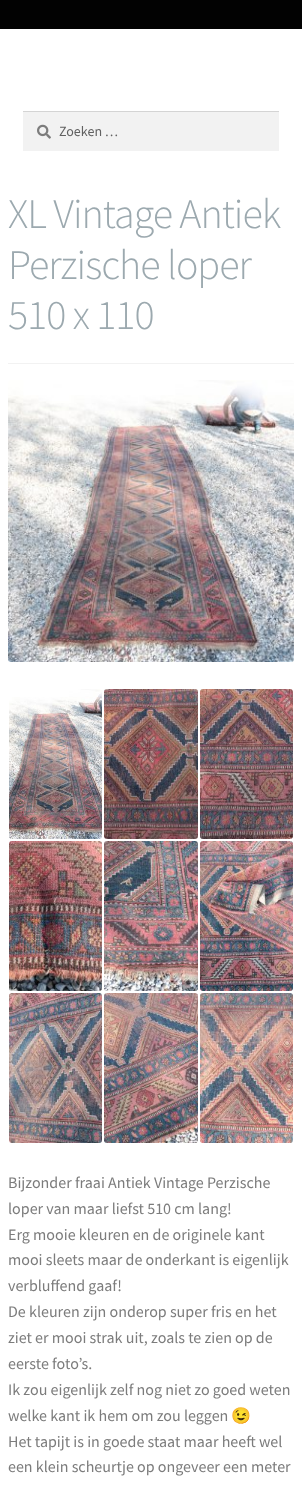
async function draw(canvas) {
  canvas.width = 302
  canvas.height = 1491
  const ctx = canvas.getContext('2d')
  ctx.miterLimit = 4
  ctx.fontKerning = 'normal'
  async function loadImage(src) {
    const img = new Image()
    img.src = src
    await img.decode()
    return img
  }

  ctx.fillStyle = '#fff'
  ctx.fillRect(0, 0, 302, 1491)
  ctx.fillStyle = '#020202'
  ctx.fillRect(0, 0, 302, 29)
  ctx.fillStyle = '#f2f2f2'
  ctx.fillRect(23, 112, 256, 39)
  ctx.drawImage(await loadImage('image0.png'), 37, 124, 14, 15)
  ctx.fillStyle = '#d4d4d4'
  ctx.fillRect(23, 111, 256, 1)
  ctx.font = '14px Source Sans Pro'
  ctx.fillStyle = '#616161'
  ctx.fillText('Zoeken …', 59, 136)
  ctx.fillStyle = '#f2f2f2'
  ctx.fillRect(8, 363, 286, 1)
  ctx.letterSpacing = '-1px'
  ctx.font = '300 42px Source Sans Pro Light'
  ctx.fillStyle = '#9ca9af'
  ctx.fillText('XL Vintage Antiek', 8, 228)
  ctx.fillText('Perzische loper', 8, 279)
  ctx.fillText('510 x 110', 8, 329)
  ctx.drawImage(await loadImage('image1.png'), 8, 380, 286, 282)
  ctx.drawImage(await loadImage('image2.png'), 9, 689, 93, 150)
  ctx.drawImage(await loadImage('image3.png'), 104, 689, 94, 150)
  ctx.drawImage(await loadImage('image4.png'), 200, 689, 93, 150)
  ctx.drawImage(await loadImage('image5.png'), 9, 841, 93, 150)
  ctx.drawImage(await loadImage('image6.png'), 104, 841, 94, 150)
  ctx.drawImage(await loadImage('image7.png'), 200, 841, 93, 150)
  ctx.drawImage(await loadImage('image8.png'), 9, 993, 93, 150)
  ctx.drawImage(await loadImage('image9.png'), 104, 993, 94, 150)
  ctx.drawImage(await loadImage('image10.png'), 200, 993, 93, 150)
  ctx.letterSpacing = '0px'
  ctx.font = '16px Source Sans Pro'
  ctx.fillStyle = '#7c7c7c'
  ctx.fillText('Bijzonder fraai Antiek Vintage Perzische', 8, 1188)
  ctx.fillText('loper van maar liefst 510 cm lang!', 8, 1214)
  ctx.fillText('Erg mooie kleuren en de originele kant', 8, 1240)
  ctx.fillText('mooi sleets maar de onderkant is eigenlijk', 8, 1265)
  ctx.fillText('verbluffend gaaf!', 8, 1291)
  ctx.fillText('De kleuren zijn onderop super fris en het', 8, 1317)
  ctx.fillText('ziet er mooi strak uit, zoals te zien op de', 8, 1343)
  ctx.fillText('eerste foto’s.', 8, 1369)
  ctx.fillText('Ik zou eigenlijk zelf nog niet zo goed weten', 8, 1395)
  ctx.fillText('welke kant ik hem om zou leggen', 8, 1421)
  ctx.font = '16px Noto Color Emoji'
  ctx.fillText('😉', 231, 1421)
  ctx.font = '16px Source Sans Pro'
  ctx.fillText('Het tapijt is in goede staat maar heeft wel', 8, 1447)
  ctx.fillText('een klein scheurtje op ongeveer een meter', 8, 1472)
}

draw(document.querySelector('canvas'))
